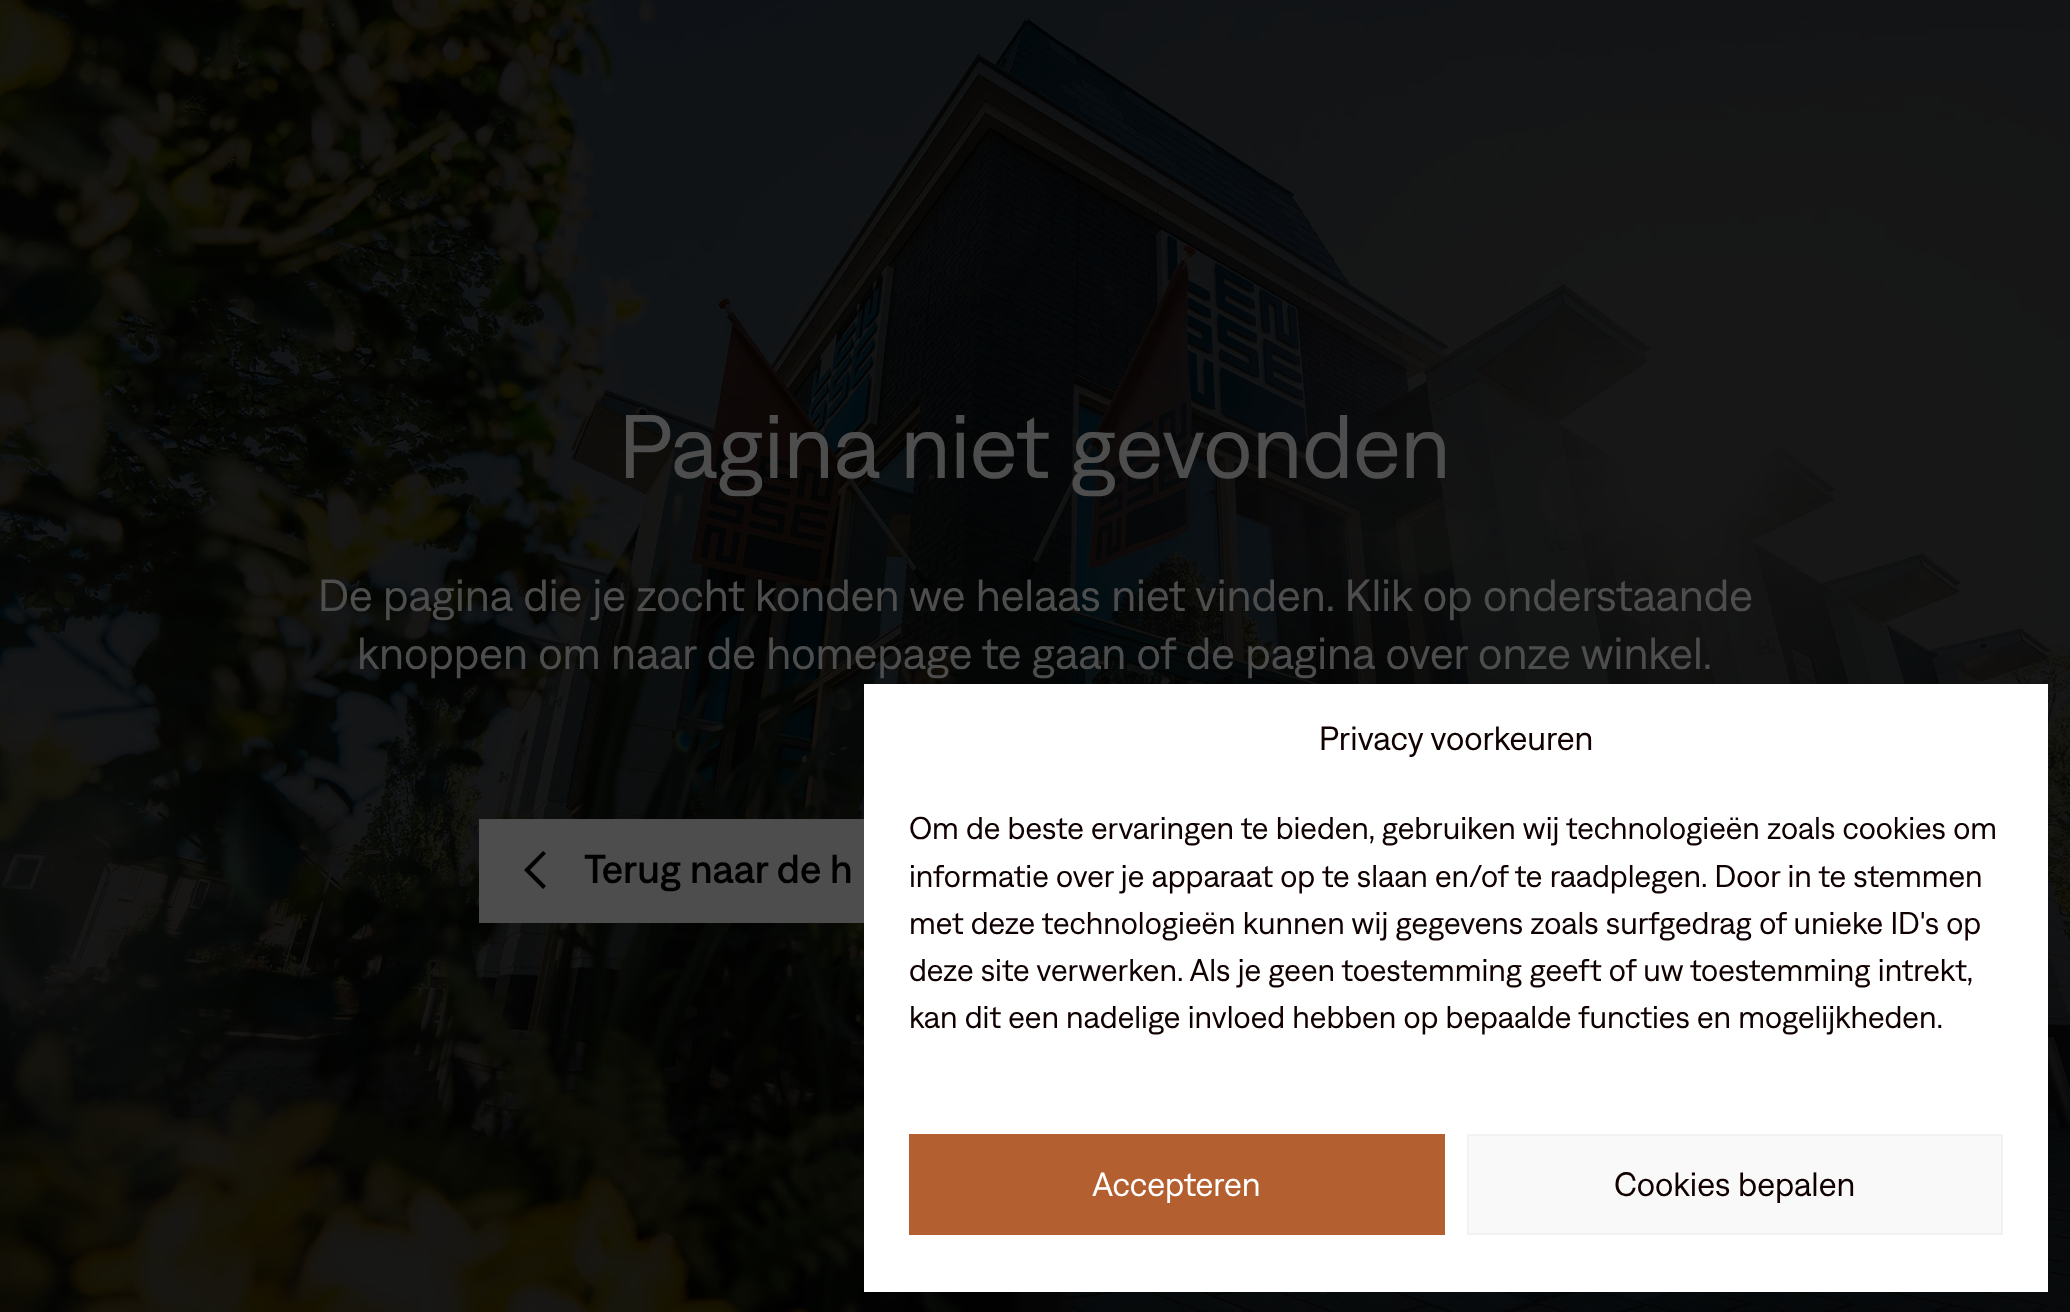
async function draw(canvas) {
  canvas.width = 2070
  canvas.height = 1312
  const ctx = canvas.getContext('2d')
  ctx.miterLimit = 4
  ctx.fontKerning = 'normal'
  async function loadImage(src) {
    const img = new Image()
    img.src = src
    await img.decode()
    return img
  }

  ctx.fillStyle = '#fff'
  ctx.fillRect(0, 0, 2070, 1312)
  ctx.drawImage(await loadImage('image0.png'), 0, 0, 2070, 1312)
  ctx.font = '90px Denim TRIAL'
  ctx.fillStyle = '#4d4d4d'
  ctx.fillText('Pagina niet gevonden', 619, 478)
  ctx.font = '45px Denim TRIAL'
  ctx.fillText('De pagina die je zocht konden we helaas niet vinden. Klik op onderstaande', 318, 611)
  ctx.fillText('knoppen om naar de homepage te gaan of de pagina over onze winkel.', 357, 669)
  ctx.fillRect(479, 819, 385, 104)
  ctx.fillStyle = '#000'
  ctx.beginPath()
  ctx.moveTo(524, 870)
  ctx.lineTo(543, 851)
  ctx.lineTo(546, 853.5)
  ctx.lineTo(530, 870)
  ctx.lineTo(546, 886)
  ctx.lineTo(543, 889)
  ctx.closePath()
  ctx.fill()
  ctx.font = '500 40.5px Denim TRIAL'
  ctx.fillText('Terug naar de h', 584, 883)
  ctx.fillStyle = '#fff'
  ctx.fillRect(864, 684, 1184, 608)
  ctx.font = '33.75px Denim TRIAL'
  ctx.fillStyle = '#100000'
  ctx.fillText('Privacy voorkeuren', 1319, 750)
  ctx.font = '31.5px Denim TRIAL'
  ctx.fillText('Om de beste ervaringen te bieden, gebruiken wij technologieën zoals cookies om', 909, 839)
  ctx.fillText('informatie over je apparaat op te slaan en/of te raadplegen. Door in te stemmen', 909, 887)
  ctx.fillText('met deze technologieën kunnen wij gegevens zoals surfgedrag of unieke ID\'s op', 909, 934)
  ctx.fillText('deze site verwerken. Als je geen toestemming geeft of uw toestemming intrekt,', 909, 981)
  ctx.fillText('kan dit een nadelige invloed hebben op bepaalde functies en mogelijkheden.', 909, 1028)
  ctx.fillStyle = '#b35f30'
  ctx.fillRect(909, 1134, 536, 101)
  ctx.font = '33.75px Denim TRIAL'
  ctx.fillStyle = '#fff'
  ctx.fillText('Accepteren', 1092, 1196)
  ctx.fillStyle = '#f9f9f9'
  ctx.beginPath()
  ctx.rect(1468, 1135, 534, 99)
  ctx.fill()
  ctx.strokeStyle = '#f2f2f2'
  ctx.lineWidth = 2
  ctx.stroke()
  ctx.fillStyle = '#100000'
  ctx.fillText('Cookies bepalen', 1614, 1196)
}

draw(document.querySelector('canvas'))
